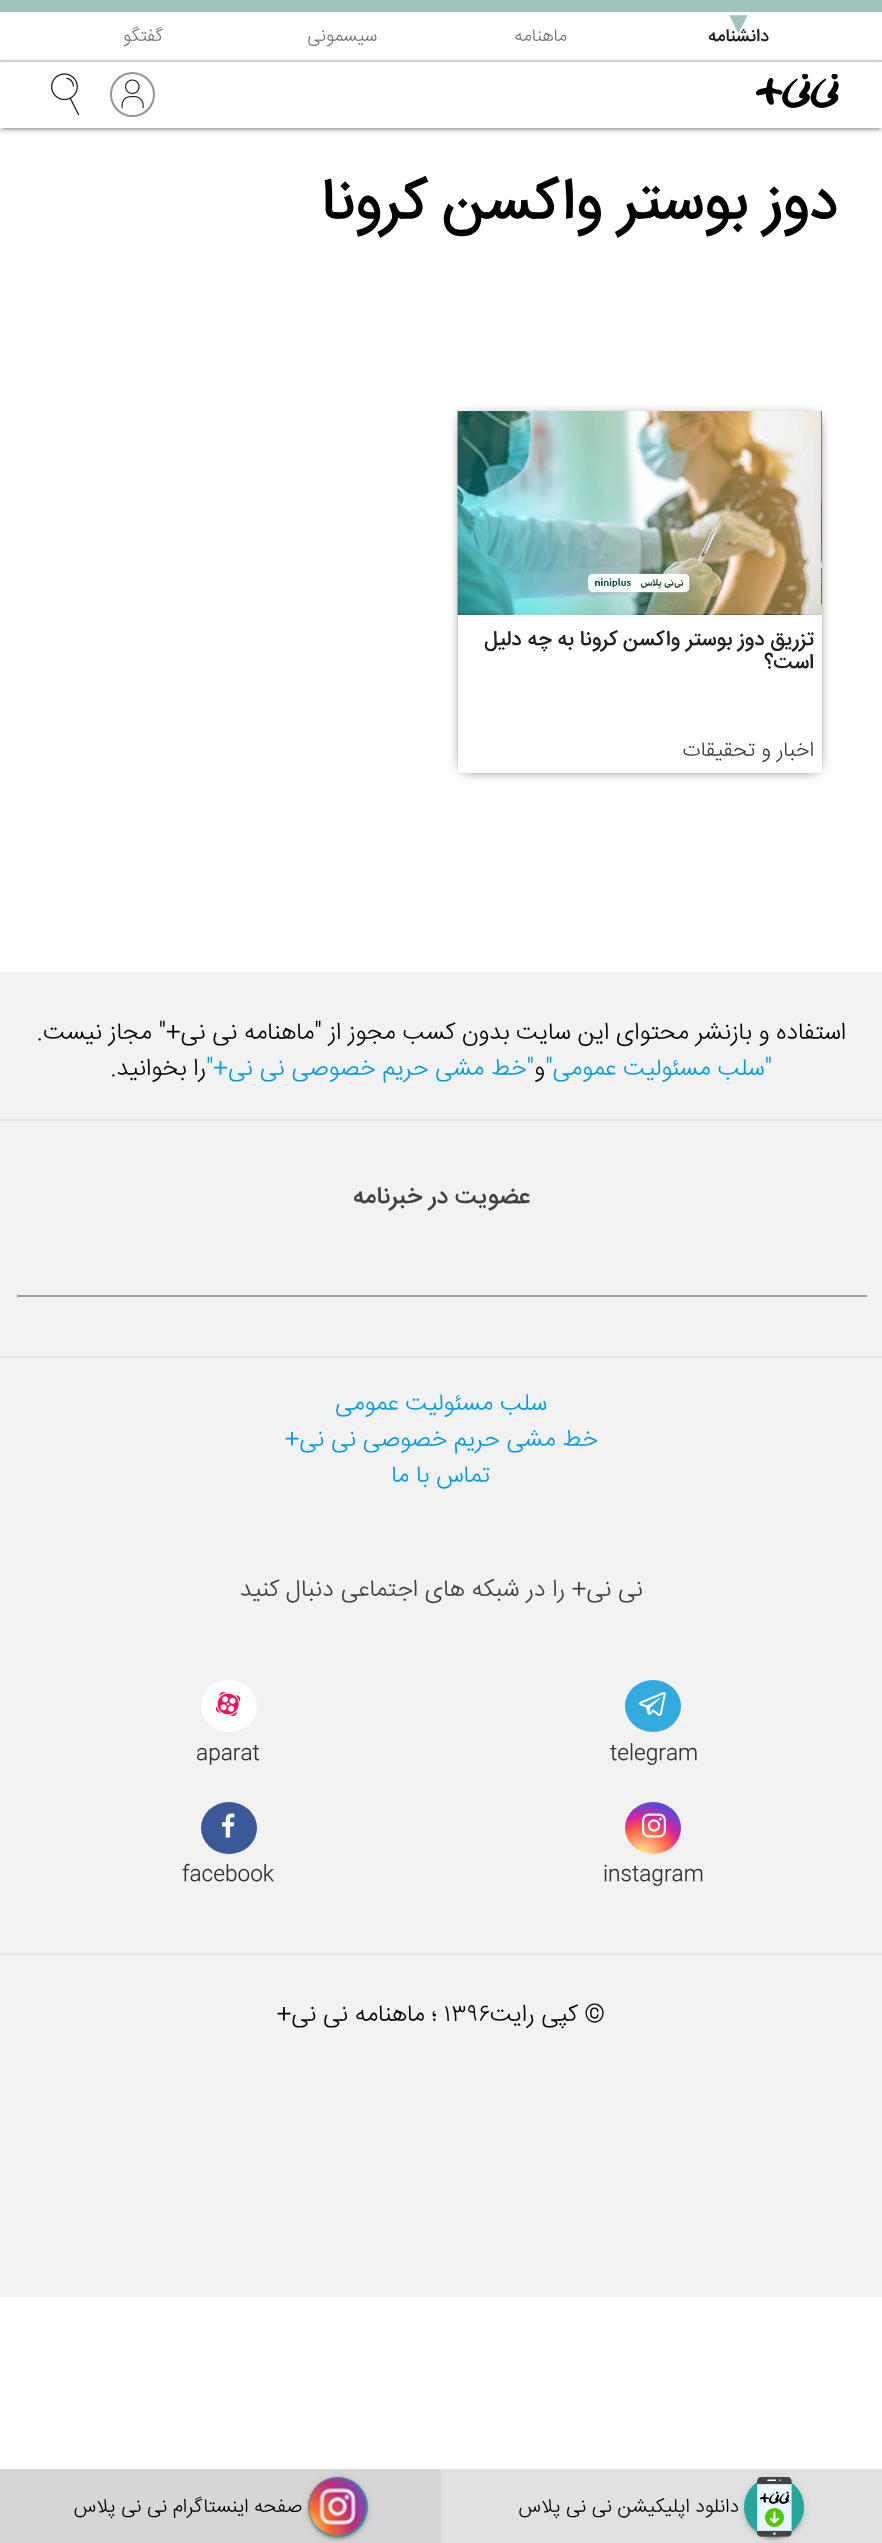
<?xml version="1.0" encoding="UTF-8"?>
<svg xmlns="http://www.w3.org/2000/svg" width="882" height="2543">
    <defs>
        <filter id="blur1" x="-50%" y="-200%" width="200%" height="500%"><feGaussianBlur stdDeviation="1"/></filter>
        <filter id="blur2" x="-50%" y="-200%" width="200%" height="500%"><feGaussianBlur stdDeviation="4"/></filter>
        <filter id="blur3" x="-50%" y="-200%" width="200%" height="500%"><feGaussianBlur stdDeviation="1.5"/></filter>
        <clipPath id="clip1"><path d="M 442 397 H 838 V 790 H 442 Z M 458 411 H 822 V 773 H 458 Z" clip-rule="evenodd"/></clipPath>
        <filter id="blur4" x="-50%" y="-200%" width="200%" height="500%"><feGaussianBlur stdDeviation="7"/></filter>
        <radialGradient id="g1" gradientUnits="userSpaceOnUse" cx="642" cy="1858" r="68"><stop offset="0" stop-color="#FDF497"/><stop offset="0.05" stop-color="#FDF497"/><stop offset="0.45" stop-color="#FD5949"/><stop offset="0.6" stop-color="#D6249F"/><stop offset="0.9" stop-color="#285AEB"/></radialGradient>
    </defs>
    <rect width="100%" height="100%" fill="#FFFFFF"/>
    <rect x="0" y="0" width="882" height="12" fill="#A0C3BE"/>
    <text x="769" y="41" font-family="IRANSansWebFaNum" font-size="18" font-weight="500" direction="rtl" fill="#212121">دانشنامه</text>
    <text x="723" y="33" font-family="Liberation Sans" font-size="31" fill="#A0C3BE">▼</text>
    <text x="567" y="41" font-family="IRANSansWebFaNum" font-size="18" font-weight="300" direction="rtl" fill="#757575">ماهنامه</text>
    <text x="377" y="41" font-family="IRANSansWebFaNum" font-size="18" font-weight="300" direction="rtl" fill="#757575">سیسمونی</text>
    <text x="163" y="41" font-family="IRANSansWebFaNum" font-size="18" font-weight="300" direction="rtl" fill="#757575">گفتگو</text>
    <rect x="3" y="68" width="876" height="61" fill="#000000" fill-opacity="0.2" filter="url(#blur1)"/>
    <rect x="0" y="62" width="882" height="67" fill="#000000" fill-opacity="0.12" filter="url(#blur2)"/>
    <rect x="0" y="63" width="882" height="68" fill="#000000" fill-opacity="0.14" filter="url(#blur3)"/>
    <rect x="0" y="62" width="882" height="66" fill="#FFFFFF"/>
    <rect x="0" y="60" width="882" height="2" fill="#CECECE"/>
    <image x="756" y="74" width="83" height="34" href="img_01.png"/>
    <circle cx="132.5" cy="94.5" r="21.5" fill="none" stroke="#949494" stroke-width="2"/>
    <image x="121" y="79" width="23" height="30" href="img_02.png"/>
    <image x="51" y="73" width="29" height="43" href="img_03.png"/>
    <text x="838" y="218" font-family="IRANSansWebFaNum" font-size="58.75" font-weight="500" direction="rtl" fill="#000000">دوز بوستر واکسن کرونا</text>
    <g clip-path="url(#clip1)">
        <rect x="464" y="419" width="352" height="349" fill="#000000" filter="url(#blur4)"/>
    </g>
    <image x="457" y="411" width="365" height="204" href="img_04.png"/>
    <rect x="458" y="772" width="364" height="1" fill="#FFFFFF"/>
    <text font-family="IRANSansWebFaNum" font-size="21" font-weight="500" direction="rtl" fill="#212121">
        <tspan x="814" y="645">تزریق دوز بوستر واکسن کرونا به چه دلیل</tspan>
        <tspan x="814" y="668">است؟</tspan>
    </text>
    <text x="814" y="756" font-family="IRANSansWebFaNum" font-size="21" font-weight="300" direction="rtl" fill="#404040">اخبار و تحقیقات</text>
    <rect x="0" y="972" width="882" height="1325" fill="#F2F2F2"/>
    <rect x="0" y="1119" width="882" height="2" fill="#E6E6E6"/>
    <text x="846" y="1039" font-family="IRANSansWebFaNum" font-size="24" font-weight="300" direction="rtl" fill="#000000">استفاده و بازنشر محتوای این سایت بدون کسب مجوز از "ماهنامه نی نی+" مجاز نیست.</text>
    <text x="772" y="1075" font-family="IRANSansWebFaNum" font-size="24" font-weight="300" direction="rtl" fill="#039BE5">"سلب مسئولیت عمومی"</text>
    <text x="545" y="1075" font-family="IRANSansWebFaNum" font-size="24" font-weight="300" direction="rtl" fill="#000000">و</text>
    <text x="534" y="1075" font-family="IRANSansWebFaNum" font-size="24" font-weight="300" direction="rtl" fill="#039BE5">"خط مشی حریم خصوصی نی نی+"</text>
    <text x="206" y="1075" font-family="IRANSansWebFaNum" font-size="24" font-weight="300" direction="rtl" fill="#000000">را بخوانید.</text>
    <rect x="0" y="1356" width="882" height="2" fill="#E6E6E6"/>
    <text x="530" y="1203" font-family="IRANSansWebFaNum" font-size="24" font-weight="500" direction="rtl" fill="#404040">عضویت در خبرنامه</text>
    <rect x="17" y="1295" width="850" height="2" fill="#9E9E9E"/>
    <text x="547" y="1410" font-family="IRANSansWebFaNum" font-size="24" font-weight="300" direction="rtl" fill="#039BE5">سلب مسئولیت عمومی</text>
    <text x="598" y="1446" font-family="IRANSansWebFaNum" font-size="24" font-weight="300" direction="rtl" fill="#039BE5">خط مشی حریم خصوصی نی نی+</text>
    <text x="490" y="1482" font-family="IRANSansWebFaNum" font-size="24" font-weight="300" direction="rtl" fill="#039BE5">تماس با ما</text>
    <rect x="0" y="1953" width="882" height="2" fill="#E6E6E6"/>
    <text x="643" y="1596" font-family="IRANSansWebFaNum" font-size="24" font-weight="300" direction="rtl" fill="#404040">نی نی+ را در شبکه های اجتماعی دنبال کنید</text>
    <ellipse cx="653" cy="1706" rx="28" ry="26" fill="#32AADE"/>
    <image x="639" y="1692" width="27" height="24" href="img_05.png"/>
    <text x="610" y="1759" font-family="IRANSansWebFaNum" font-size="21" font-weight="300" fill="#333333">telegram</text>
    <ellipse cx="229" cy="1706" rx="28" ry="26" fill="#FFFFFF"/>
    <image x="216" y="1692" width="25" height="24" href="img_06.png"/>
    <text x="196" y="1759" font-family="IRANSansWebFaNum" font-size="21" font-weight="300" fill="#333333">aparat</text>
    <ellipse cx="653" cy="1828" rx="28" ry="26" fill="url(#g1)"/>
    <image x="642" y="1813" width="24" height="25" href="img_07.png"/>
    <text x="603" y="1880" font-family="IRANSansWebFaNum" font-size="21" font-weight="300" fill="#333333">instagram</text>
    <ellipse cx="229" cy="1828" rx="28" ry="26" fill="#3B5998"/>
    <image x="222" y="1813" width="13" height="25" href="img_08.png"/>
    <text x="182" y="1880" font-family="IRANSansWebFaNum" font-size="21" font-weight="300" fill="#333333">facebook</text>
    <text x="605" y="2021" font-family="IRANSansWebFaNum" font-size="24" font-weight="300" direction="rtl" fill="#000000">© کپی رایت</text>
    <text x="444" y="2021" font-family="IRANSansWebFaNum" font-size="24" font-weight="300" fill="#000000">۱۳۹۶</text>
    <text x="437" y="2021" font-family="IRANSansWebFaNum" font-size="24" font-weight="300" direction="rtl" fill="#000000">؛</text>
    <text x="425" y="2021" font-family="IRANSansWebFaNum" font-size="24" font-weight="300" direction="rtl" fill="#000000">ماهنامه نی نی+</text>
    <rect x="441" y="2469" width="441" height="74" fill="#E1E1E1"/>
    <rect x="747" y="2484" width="54" height="54" rx="27" fill="#000000" fill-opacity="0.2" filter="url(#blur1)"/>
    <rect x="744" y="2478" width="60" height="60" rx="30" fill="#000000" fill-opacity="0.12" filter="url(#blur2)"/>
    <rect x="744" y="2480" width="60" height="60" rx="30" fill="#000000" fill-opacity="0.14" filter="url(#blur3)"/>
    <circle cx="774" cy="2507" r="30" fill="#26A69A"/>
    <image x="757" y="2477" width="35" height="60" href="img_09.png"/>
    <text x="739" y="2512" font-family="IRANSansWebFaNum" font-size="19.5" font-weight="300" direction="rtl" fill="#000000">دانلود اپلیکیشن نی نی پلاس</text>
    <rect x="0" y="2469" width="441" height="74" fill="#D7D6D6"/>
    <rect x="311" y="2484" width="54" height="54" rx="27" fill="#000000" fill-opacity="0.2" filter="url(#blur1)"/>
    <rect x="308" y="2478" width="60" height="60" rx="30" fill="#000000" fill-opacity="0.12" filter="url(#blur2)"/>
    <rect x="308" y="2480" width="60" height="60" rx="30" fill="#000000" fill-opacity="0.14" filter="url(#blur3)"/>
    <circle cx="338" cy="2507" r="30" fill="#26A69A"/>
    <image x="307" y="2476" width="61" height="61" href="img_10.png"/>
    <text x="302" y="2512" font-family="IRANSansWebFaNum" font-size="19.5" font-weight="300" direction="rtl" fill="#000000">صفحه اینستاگرام نی نی پلاس</text>
</svg>
